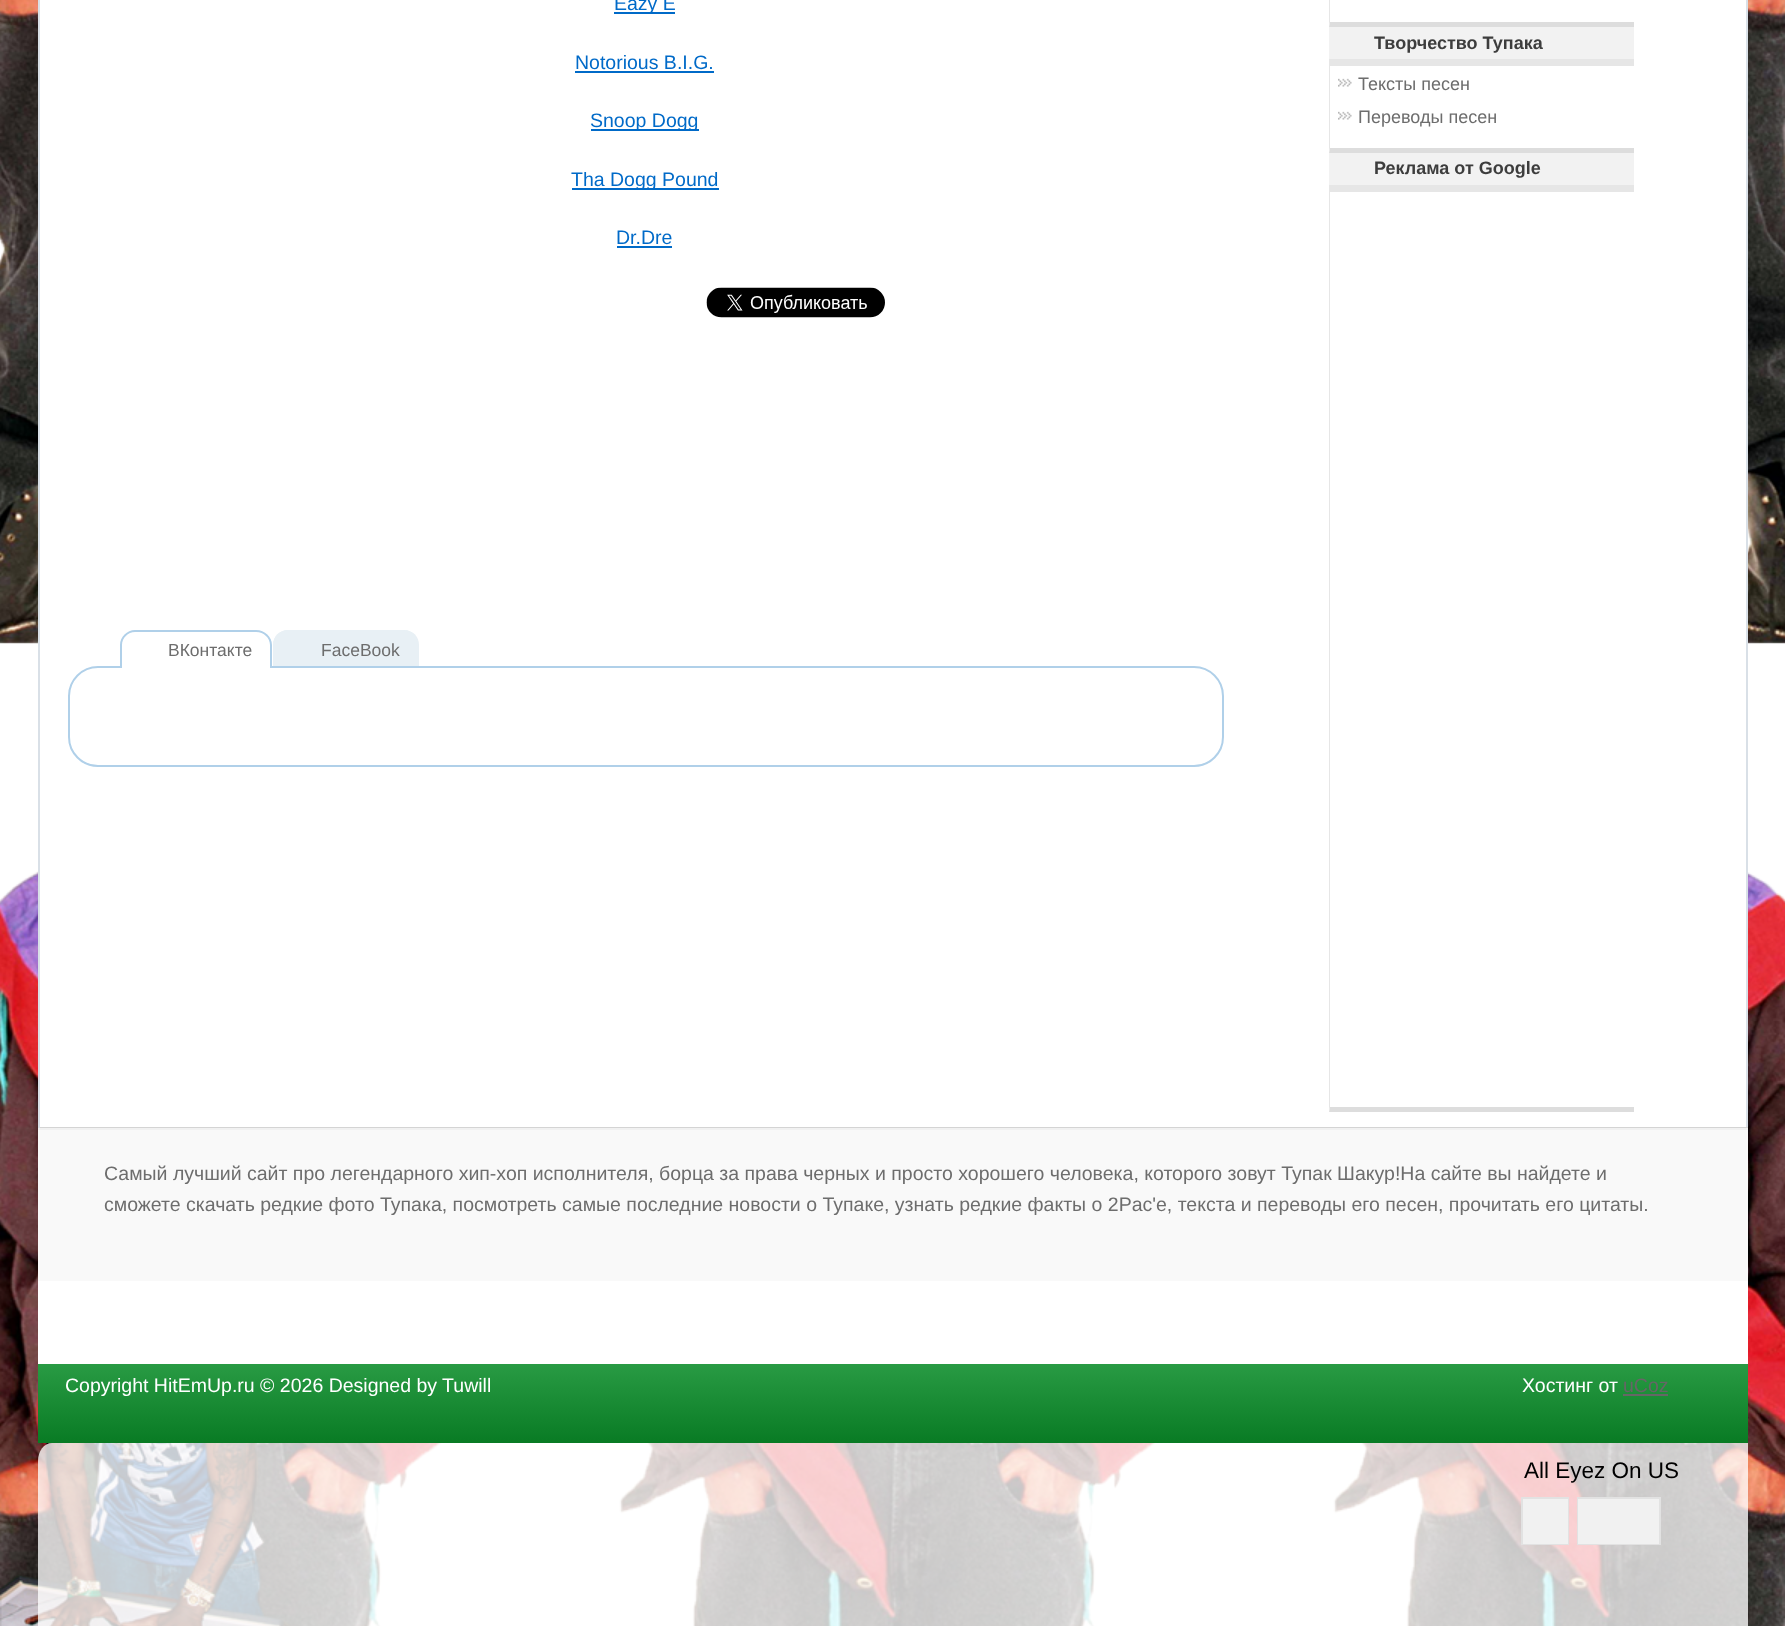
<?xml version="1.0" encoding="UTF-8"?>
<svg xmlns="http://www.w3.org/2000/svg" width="1785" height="1626">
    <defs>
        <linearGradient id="g1" gradientUnits="userSpaceOnUse" x1="893" y1="1363" x2="893" y2="1443"><stop offset="0" stop-color="#299B44"/><stop offset="1" stop-color="#097B24"/></linearGradient>
    </defs>
    <rect width="100%" height="100%" fill="#FFFFFF"/>
    <image x="0" y="0" width="1785" height="1626" href="img_01.png"/>
    <image x="0" y="1443" width="291" height="183" href="img_02.png"/>
    <rect x="40" y="0" width="1706" height="1127" fill="#FFFFFF"/>
    <rect x="1746" y="0" width="2" height="1128" fill="#D9E0E7"/>
    <rect x="38" y="1127" width="1710" height="1" fill="#D4D4D4"/>
    <rect x="38" y="0" width="2" height="1128" fill="#D9E0E7"/>
    <rect x="614" y="12" width="61" height="2" fill="#006AC8"/>
    <text x="614" y="10" font-family="Liberation Sans" font-size="19.5" fill="#006AC8">Eazy E</text>
    <text x="575" y="69" font-family="Liberation Sans" font-size="19.5" fill="#006AC8">Notorious B.I.G.</text>
    <rect x="575" y="71" width="139" height="2" fill="#006AC8"/>
    <rect x="591" y="129" width="108" height="2" fill="#006AC8"/>
    <text x="590" y="127" font-family="Liberation Sans" font-size="19.5" fill="#006AC8">Snoop Dogg</text>
    <rect x="572" y="188" width="147" height="2" fill="#006AC8"/>
    <text x="571" y="186" font-family="Liberation Sans" font-size="19.5" fill="#006AC8">Tha Dogg Pound</text>
    <text x="616" y="244" font-family="Liberation Sans" font-size="19.5" fill="#006AC8">Dr.Dre</text>
    <rect x="617" y="246" width="55" height="2" fill="#006AC8"/>
    <image x="706" y="287" width="179" height="31" href="img_03.png"/>
    <path d="M 288 630 H 404 C 412.5 630 419 636.5 419 645 V 668 H 273 V 645 C 273 636.5 279.5 630 288 630 Z" fill="#E8F0F5"/>
    <path d="M 288 630 H 404 C 412 630 418 637 418 645 V 668 H 273 V 645 C 273 637 280 630 288 630 Z M 288 632 H 404 C 411 632 417 638 417 645 V 668 H 274 V 645 C 274 638 281 632 288 632 Z" fill="#E8F0F5" fill-rule="evenodd"/>
    <rect x="273" y="666" width="146" height="2" fill="#FFFFFF"/>
    <rect x="69" y="667" width="1154" height="99" rx="29" fill="none" stroke="#B0D0E9" stroke-width="2"/>
    <path d="M 135 630 H 257 C 265.5 630 272 636.5 272 645 V 668 H 120 V 645 C 120 636.5 126.5 630 135 630 Z" fill="#FFFFFF"/>
    <path d="M 135 630 H 256 C 265 630 272 637 272 645 V 668 H 120 V 645 C 120 637 127 630 135 630 Z M 135 632 H 256 C 264 632 270 638 270 645 V 668 H 122 V 645 C 122 638 128 632 135 632 Z" fill="#B0D0E9" fill-rule="evenodd"/>
    <text x="168" y="656" font-family="Liberation Sans" font-size="17.5" fill="#6D6D6D">ВКонтакте</text>
    <text x="321" y="656" font-family="Liberation Sans" font-size="17.5" fill="#6D6D6D">FaceBook</text>
    <path d="M 1634 27 H 1329 L 1330 22 H 1634 Z" fill="#DDDDDD"/>
    <path d="M 1329 27 V -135 L 1330 -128 V 22 Z" fill="#E6E6E6"/>
    <rect x="1329" y="27" width="305" height="32" fill="#F2F2F2"/>
    <text x="1374" y="49" font-family="Liberation Sans" font-size="18" font-weight="700" fill="#3D3D3D">Творчество Тупака</text>
    <rect x="1329" y="59" width="305" height="7" fill="#E6E6E6"/>
    <path d="M 1634 153 H 1329 L 1330 148 H 1634 Z" fill="#DDDDDD"/>
    <path d="M 1329 153 V 58 L 1330 66 V 148 Z" fill="#E6E6E6"/>
    <image x="1338" y="78" width="14" height="9" href="img_04.png"/>
    <text x="1358" y="90" font-family="Liberation Sans" font-size="18" fill="#6D6D6D">Тексты песен</text>
    <image x="1338" y="111" width="14" height="9" href="img_04.png"/>
    <text x="1358" y="123" font-family="Liberation Sans" font-size="18" fill="#6D6D6D">Переводы песен</text>
    <rect x="1329" y="153" width="305" height="32" fill="#F2F2F2"/>
    <text x="1374" y="174" font-family="Liberation Sans" font-size="18" font-weight="700" fill="#3D3D3D">Реклама от Google</text>
    <rect x="1329" y="185" width="305" height="7" fill="#E6E6E6"/>
    <path d="M 1634 1112 H 1329 L 1330 1107 H 1634 Z" fill="#DDDDDD"/>
    <path d="M 1329 1112 V 184 L 1330 192 V 1107 Z" fill="#E6E6E6"/>
    <rect x="38" y="1130" width="1710" height="151" fill="#F9F9F9"/>
    <rect x="38" y="1128" width="1710" height="2" fill="#F1F1F1"/>
    <text font-family="Liberation Sans" font-size="19.5" fill="#6D6D6D">
        <tspan x="104" y="1180">Самый лучший сайт про легендарного хип-хоп исполнителя, борца за права черных и просто хорошего человека, которого зовут Тупак Шакур!На сайте вы найдете и</tspan>
        <tspan x="104" y="1211">сможете скачать редкие фото Тупака, посмотреть самые последние новости о Тупаке, узнать редкие факты о 2Pac'e, текста и переводы его песен, прочитать его цитаты.</tspan>
    </text>
    <rect x="38" y="1281" width="1710" height="83" fill="#FFFFFF"/>
    <rect x="38" y="1364" width="1710" height="79" fill="url(#g1)"/>
    <text x="65" y="1392" font-family="Liberation Sans" font-size="19.5" fill="#FFFFFF">Copyright HitEmUp.ru © 2026 Designed by Tuwill</text>
    <text x="1522" y="1392" font-family="Liberation Sans" font-size="19.5" fill="#FFFFFF">Хостинг от</text>
    <text x="1623" y="1392" font-family="Liberation Sans" font-size="19.5" fill="#666666">uCoz</text>
    <rect x="1623" y="1394" width="45" height="2" fill="#666666"/>
    <path d="M 52 1443 H 1748 V 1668 H 38 V 1461 C 38 1451 44 1443 52 1443 Z" fill="#FFFFFF" fill-opacity="0.78"/>
    <text x="1524" y="1478" font-family="Liberation Sans" font-size="22.5" fill="#000000">All Eyez On US</text>
    <rect x="1522" y="1498" width="46" height="46" fill="none" stroke="#E2E2E2" stroke-width="2"/>
    <rect x="1523" y="1499" width="45" height="45" fill="#F1F1F1"/>
    <rect x="1578" y="1498" width="82" height="46" fill="none" stroke="#E2E2E2" stroke-width="2"/>
    <rect x="1578" y="1499" width="81" height="45" fill="#F1F1F1"/>
</svg>
